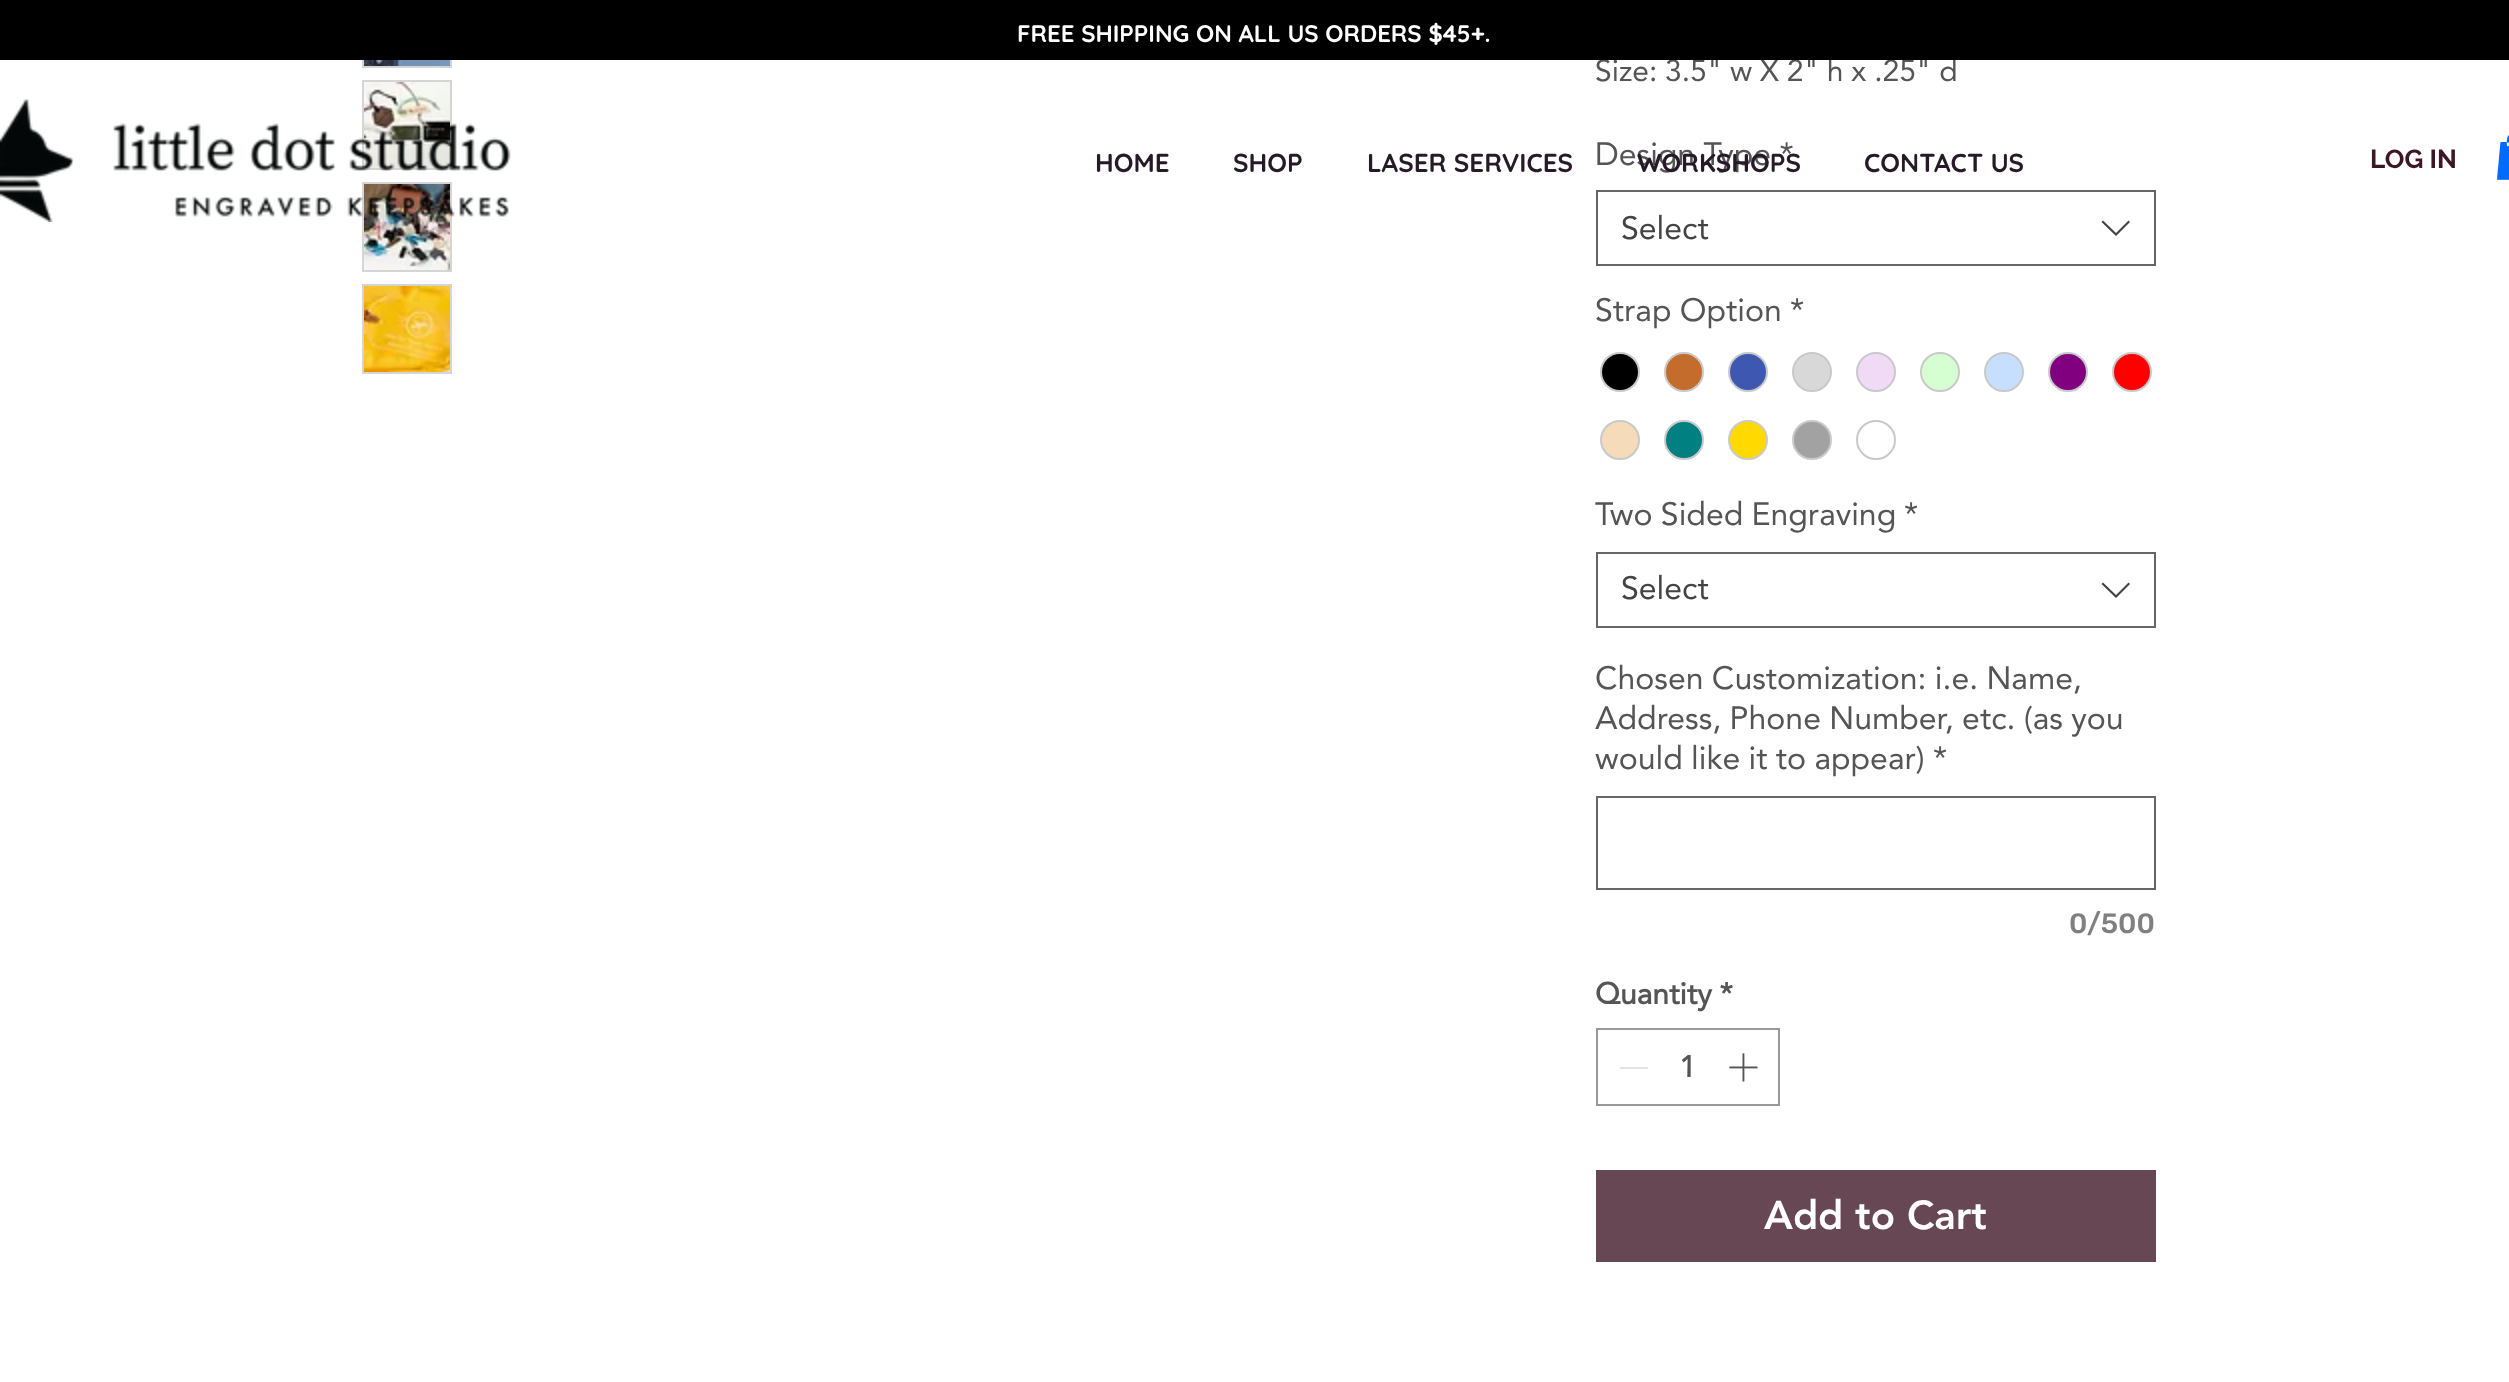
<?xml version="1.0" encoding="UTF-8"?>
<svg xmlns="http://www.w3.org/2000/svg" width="2509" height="1382">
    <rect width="100%" height="100%" fill="#FFFFFF"/>
    <text x="1595" y="81" font-family="'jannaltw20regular'" font-size="30" fill="#555555">Size: 3.5" w X 2" h x .25" d</text>
    <rect x="0" y="0" width="2509" height="60" fill="#000000"/>
    <text x="1017" y="42" font-family="Quicksand" font-size="24" font-weight="700" fill="#FFFFFF">FREE SHIPPING ON ALL US ORDERS $45+.</text>
    <rect x="362" y="80" width="90" height="90" fill="#D5D5D5"/>
    <image x="364" y="82" width="86" height="86" href="img_04.png"/>
    <rect x="362" y="182" width="90" height="90" fill="#D5D5D5"/>
    <image x="364" y="184" width="86" height="86" href="img_05.png"/>
    <image x="0" y="98" width="511" height="124" href="img_01.png"/>
    <text x="1095" y="172" font-family="Quicksand" font-size="26" font-weight="700" fill="#271A28">HOME</text>
    <text x="1233" y="172" font-family="Quicksand" font-size="26" font-weight="700" fill="#271A28">SHOP</text>
    <text x="1367" y="172" font-family="Quicksand" font-size="26" font-weight="700" fill="#271A28">LASER SERVICES</text>
    <text x="1595" y="165" font-family="'jannaltw20regular'" font-size="32" fill="#555555">Design Type *</text>
    <text x="1637" y="172" font-family="Quicksand" font-size="26" font-weight="700" fill="#271A28">WORKSHOPS</text>
    <text x="1864" y="172" font-family="Quicksand" font-size="26" font-weight="700" fill="#271A28">CONTACT US</text>
    <text x="2370" y="168" font-family="Raleway" font-size="26" font-weight="700" fill="#3D1726">LOG IN</text>
    <image x="2497" y="135" width="12" height="45" href="img_02.png"/>
    <rect x="362" y="60" width="90" height="8" fill="#D5D5D5"/>
    <image x="364" y="60" width="86" height="6" href="img_03.png"/>
    <rect x="362" y="284" width="90" height="90" fill="#D5D5D5"/>
    <image x="364" y="286" width="86" height="86" href="img_06.png"/>
    <rect x="1597" y="191" width="558" height="74" fill="none" stroke="#666666" stroke-width="2"/>
    <text x="1621" y="239" font-family="'jannaltw20regular'" font-size="32" fill="#444444">Select</text>
    <path d="M 2128.5 220.5 L 2130 222 L 2116 236 L 2101.5 222 L 2103 220.5 L 2116 233 Z" fill="#444444" fill-rule="evenodd"/>
    <text x="1595" y="321" font-family="'jannaltw20regular'" font-size="32" fill="#555555">Strap Option *</text>
    <circle cx="1620" cy="372" r="19" fill="#000000" stroke="#C9C9C9" stroke-width="2"/>
    <circle cx="1684" cy="372" r="19" fill="#C46C2B" stroke="#C9C9C9" stroke-width="2"/>
    <circle cx="1748" cy="372" r="19" fill="#3E58B2" stroke="#C9C9C9" stroke-width="2"/>
    <circle cx="1812" cy="372" r="19" fill="#D9D8D8" stroke="#C9C9C9" stroke-width="2"/>
    <circle cx="1876" cy="372" r="19" fill="#F1DAF5" stroke="#C9C9C9" stroke-width="2"/>
    <circle cx="1940" cy="372" r="19" fill="#D6FFD1" stroke="#C9C9C9" stroke-width="2"/>
    <circle cx="2004" cy="372" r="19" fill="#C7DFFF" stroke="#C9C9C9" stroke-width="2"/>
    <circle cx="2068" cy="372" r="19" fill="#800080" stroke="#C9C9C9" stroke-width="2"/>
    <circle cx="2132" cy="372" r="19" fill="#FF0000" stroke="#C9C9C9" stroke-width="2"/>
    <circle cx="1620" cy="440" r="19" fill="#F5DBB9" stroke="#C9C9C9" stroke-width="2"/>
    <circle cx="1684" cy="440" r="19" fill="#008080" stroke="#C9C9C9" stroke-width="2"/>
    <circle cx="1748" cy="440" r="19" fill="#FFD900" stroke="#C9C9C9" stroke-width="2"/>
    <circle cx="1812" cy="440" r="19" fill="#A2A2A2" stroke="#C9C9C9" stroke-width="2"/>
    <circle cx="1876" cy="440" r="19" fill="none" stroke="#C9C9C9" stroke-width="2"/>
    <text x="1595" y="525" font-family="'jannaltw20regular'" font-size="32" fill="#555555">Two Sided Engraving</text>
    <text x="1904" y="525" font-family="'jannaltw20regular'" font-size="32" fill="#555555">*</text>
    <rect x="1597" y="553" width="558" height="74" fill="none" stroke="#666666" stroke-width="2"/>
    <text x="1621" y="599" font-family="'jannaltw20regular'" font-size="32" fill="#444444">Select</text>
    <path d="M 2128.5 582.5 L 2130 584 L 2116 598 L 2101.5 584 L 2103 582.5 L 2116 595 Z" fill="#444444" fill-rule="evenodd"/>
    <text font-family="'jannaltw20regular'" font-size="32" fill="#555555">
        <tspan x="1595" y="689">Chosen Customization: i.e. Name,</tspan>
        <tspan x="1595" y="729">Address, Phone Number, etc. (as you</tspan>
        <tspan x="1595" y="769">would like it to appear) *</tspan>
    </text>
    <rect x="1597" y="797" width="558" height="92" fill="none" stroke="#666666" stroke-width="2"/>
    <text x="2069" y="933" font-family="Rubik" font-size="28" font-weight="500" fill="#808080">0/500</text>
    <text x="1595" y="1004" font-family="'jannaltw20regular'" font-size="30" font-weight="700" fill="#555555">Quantity *</text>
    <rect x="1597" y="1029" width="182" height="76" fill="none" stroke="#999999" stroke-width="2"/>
    <rect x="1620" y="1067" width="28" height="2" fill="#E3E3E3"/>
    <text x="1679" y="1077" font-family="'jannaltw20regular'" font-size="30" font-weight="700" fill="#555555">1</text>
    <image x="1729" y="1053" width="29" height="29" href="img_07.png"/>
    <rect x="1596" y="1170" width="560" height="92" fill="#674753"/>
    <text x="1764" y="1229" font-family="'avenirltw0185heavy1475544'" font-size="40" font-weight="900" fill="#FFFFFF">Add to Cart</text>
</svg>
